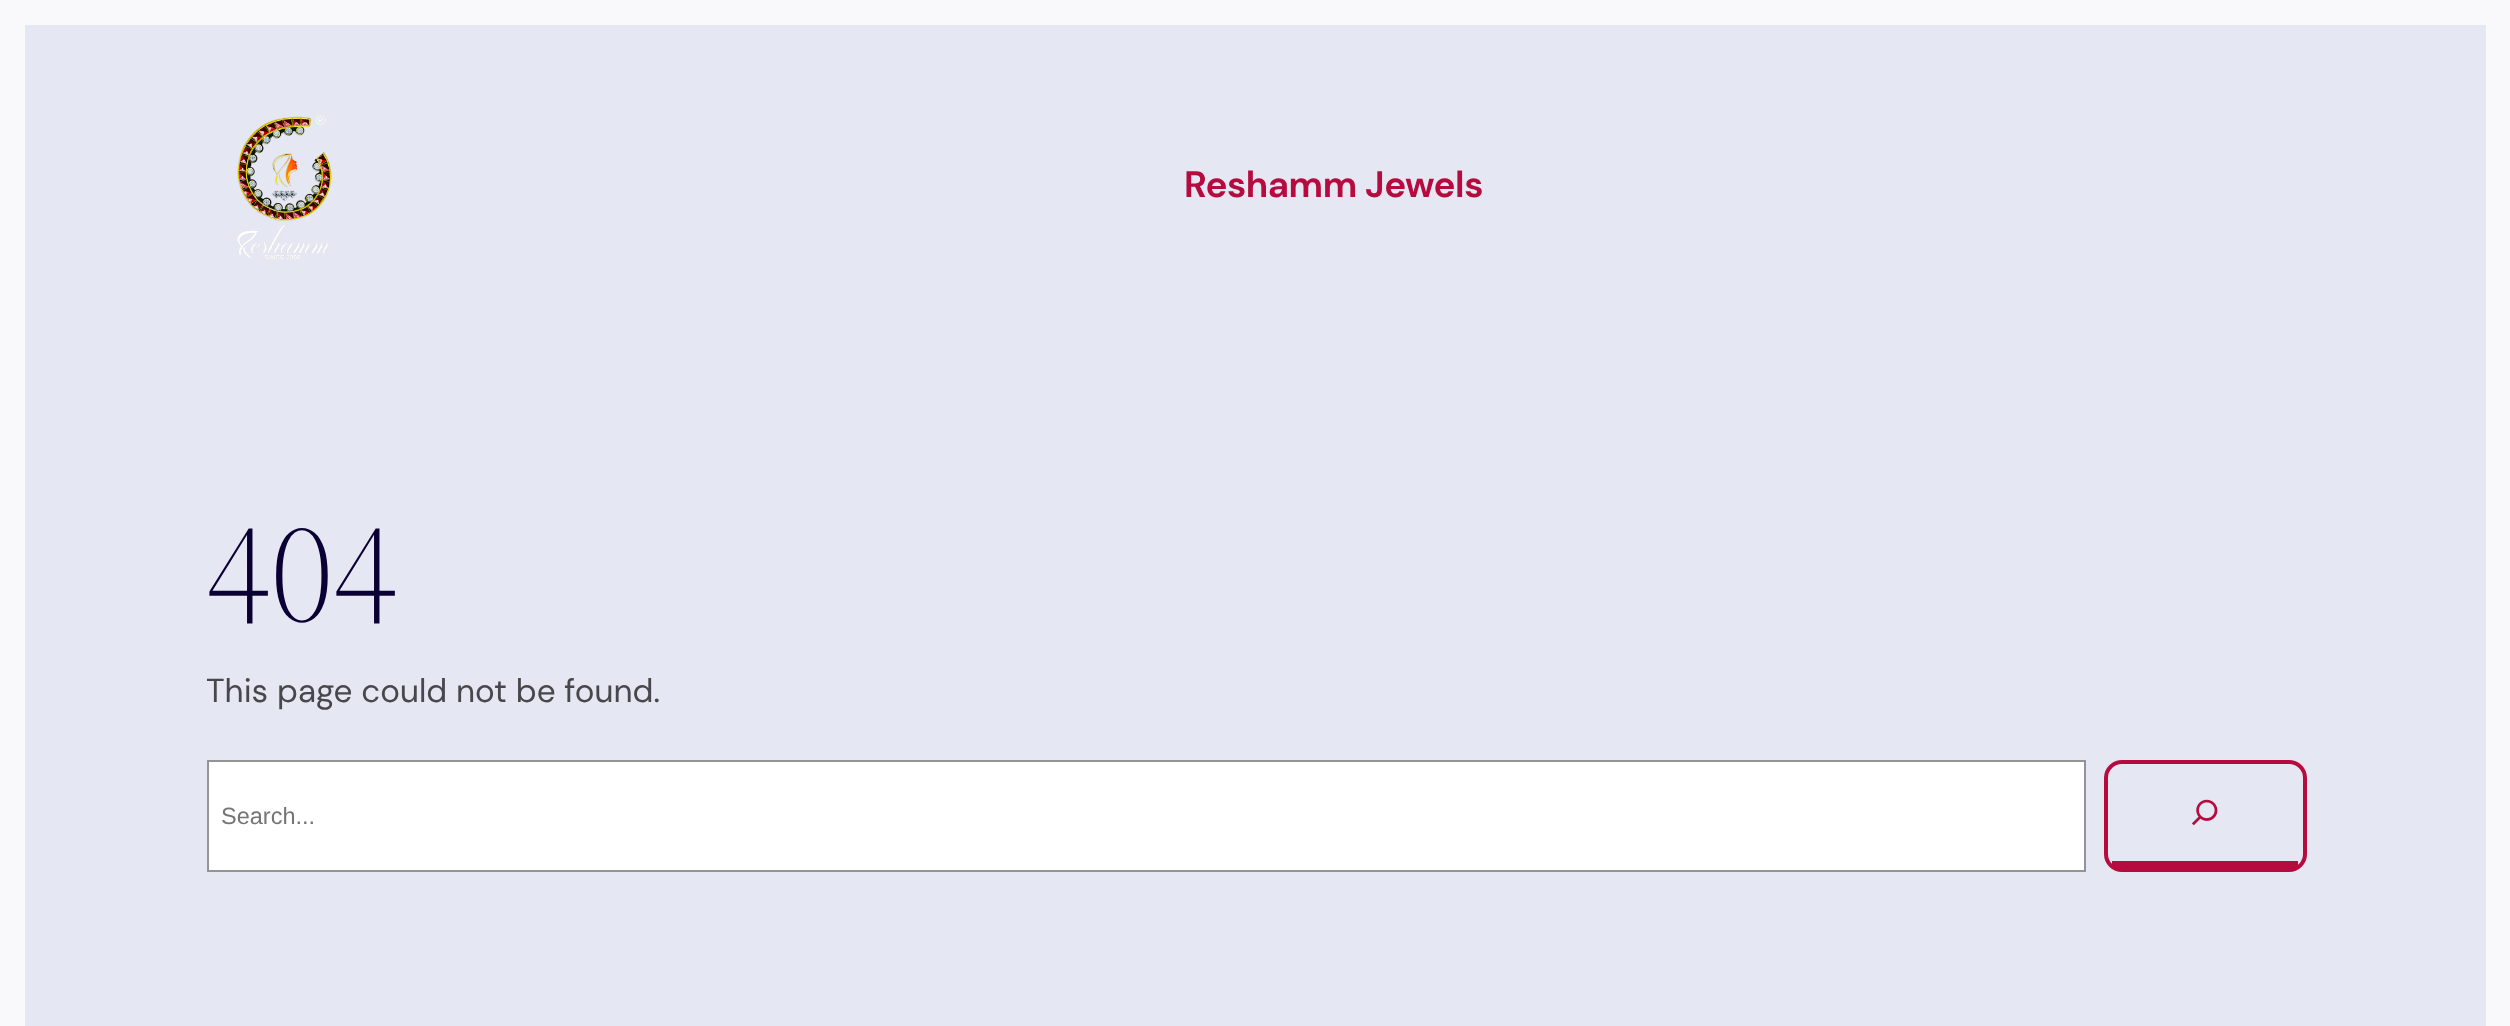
<?xml version="1.0" encoding="UTF-8"?>
<svg xmlns="http://www.w3.org/2000/svg" width="2510" height="1026">
    <rect width="100%" height="100%" fill="#E5E7F2"/>
    <rect x="12.5" y="12.5" width="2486" height="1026" fill="none" stroke="#F9F9FB" stroke-width="25"/>
    <image x="237" y="115" width="95" height="145" href="img_01.png"/>
    <text x="1184" y="197" font-family="DM Sans" font-size="36.75" font-weight="700" letter-spacing="-0.4" fill="#B50B3E">Reshamm Jewels</text>
    <text x="206" y="621" font-family="'Source Serif 4'" font-size="140" font-weight="300" letter-spacing="-1.5" fill="#0B0033">404</text>
    <text x="206" y="702" font-family="DM Sans" font-size="33.25" fill="#47484B">This page could not be found.</text>
    <rect x="208" y="761" width="1877" height="110" fill="#FFFFFF" stroke="#949494" stroke-width="2"/>
    <text x="221" y="824" font-family="Liberation Sans" font-size="23.5" fill="#757575">Search...</text>
    <rect x="2106" y="762" width="199" height="108" rx="16" fill="none" stroke="#B50B3E" stroke-width="4"/>
    <rect x="2112" y="861" width="186" height="7" fill="#B50B3E"/>
    <image x="2192" y="799" width="26" height="27" href="img_02.png"/>
</svg>
